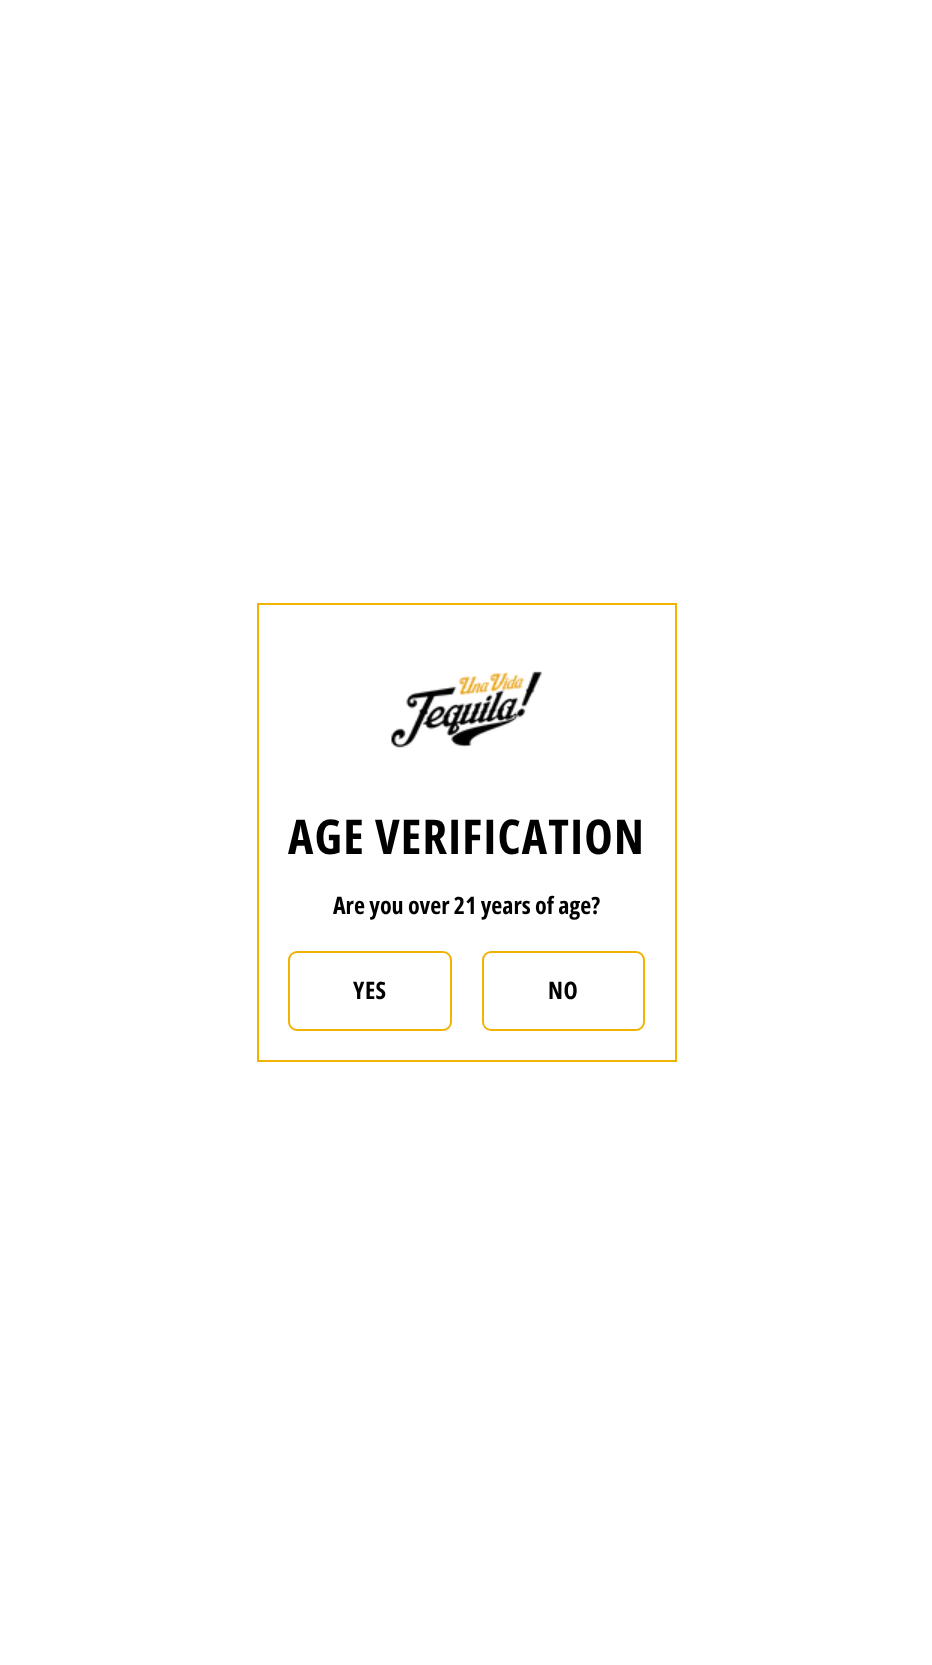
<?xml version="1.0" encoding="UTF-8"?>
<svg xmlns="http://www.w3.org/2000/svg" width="932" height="1665">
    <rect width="100%" height="100%" fill="#FFFFFF"/>
    <rect x="258" y="604" width="418" height="457" fill="none" stroke="#F2B202" stroke-width="2"/>
    <image x="391" y="671" width="151" height="77" href="img_01.png"/>
    <text x="288" y="854" font-family="Open Sans Condensed" font-size="48" font-weight="700" letter-spacing="1.25" fill="#000000">AGE VERIFICATION</text>
    <text x="333" y="914" font-family="Open Sans Condensed" font-size="24" font-weight="700" fill="#000000">Are you over 21 years of age?</text>
    <rect x="289" y="952" width="162" height="78" rx="8" fill="none" stroke="#F2B202" stroke-width="2"/>
    <text x="353" y="999" font-family="Open Sans Condensed" font-size="24" font-weight="700" letter-spacing="0.5" fill="#000000">YES</text>
    <rect x="483" y="952" width="161" height="78" rx="8" fill="none" stroke="#F2B202" stroke-width="2"/>
    <text x="548" y="999" font-family="Open Sans Condensed" font-size="24" font-weight="700" letter-spacing="0.5" fill="#000000">NO</text>
</svg>
